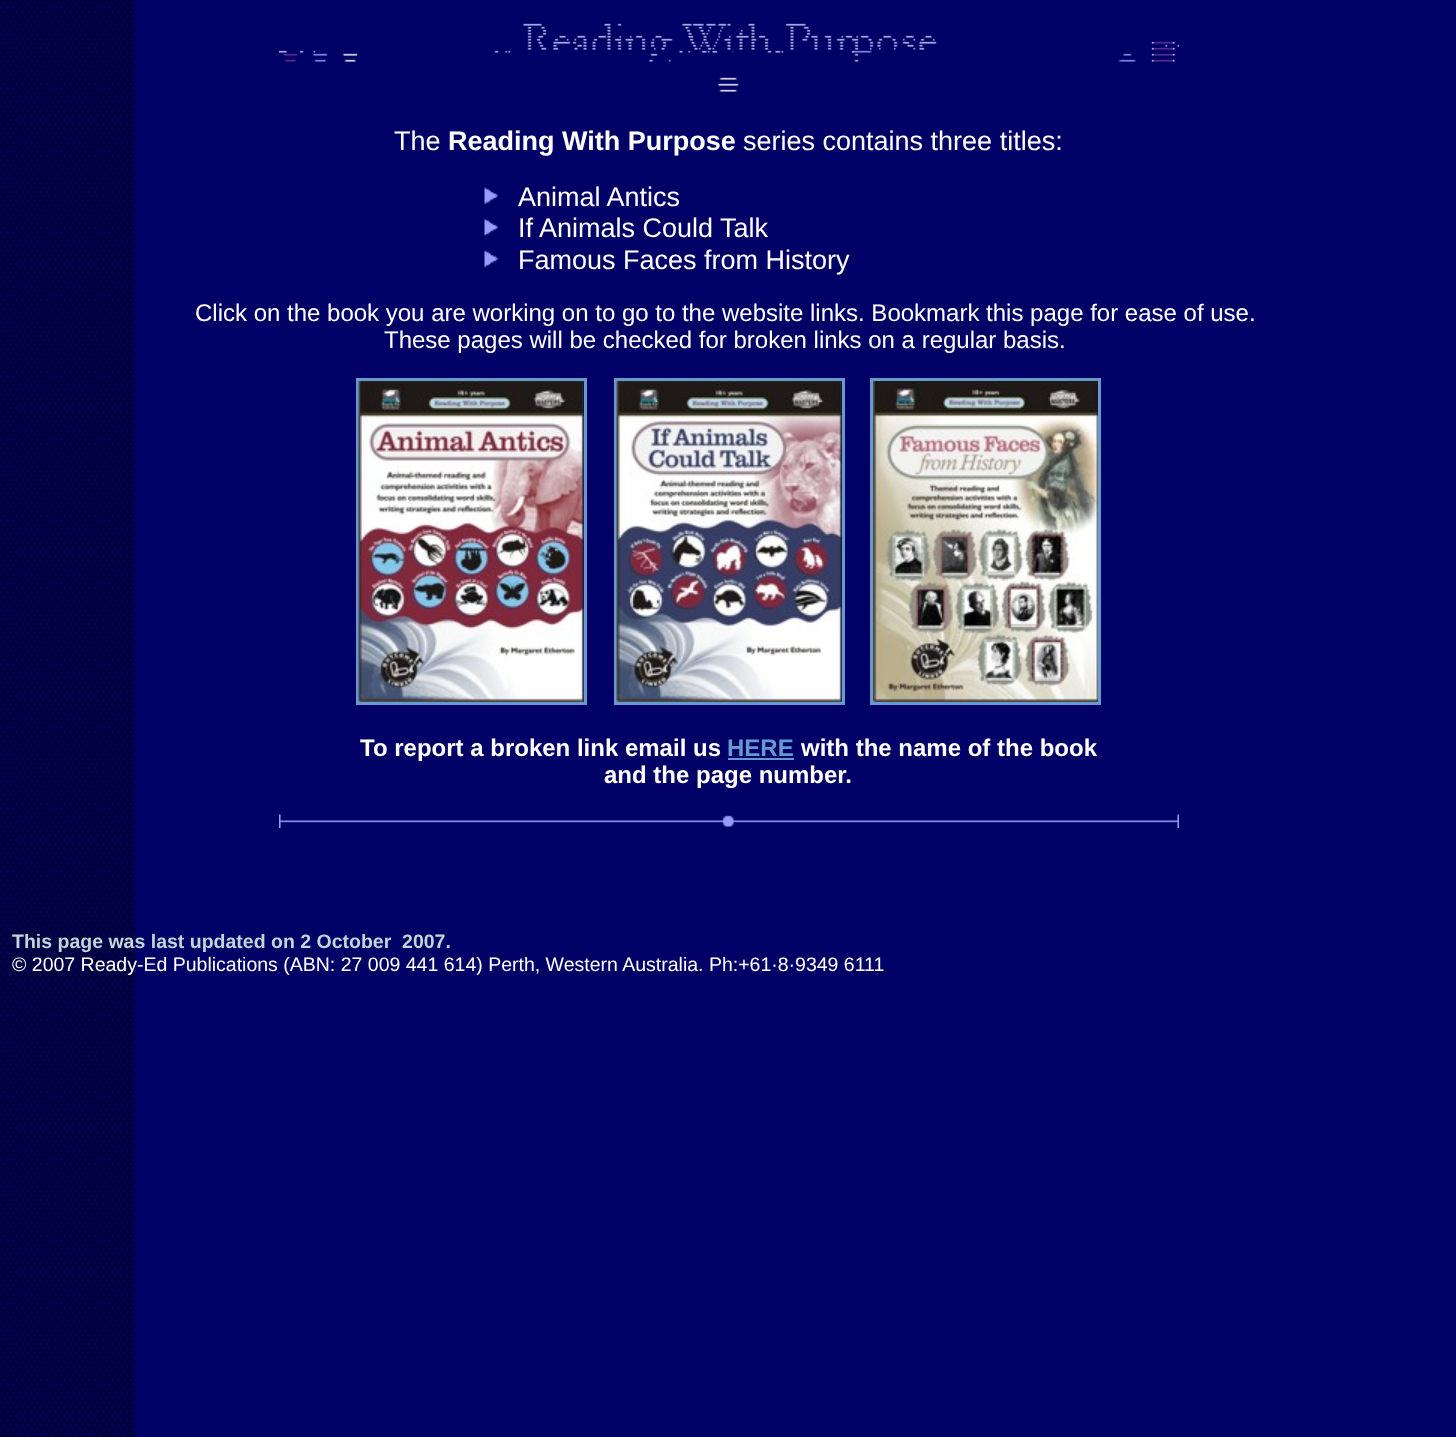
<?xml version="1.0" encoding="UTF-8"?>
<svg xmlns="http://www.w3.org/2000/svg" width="1456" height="1437">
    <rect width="100%" height="100%" fill="#FFFFFF"/>
    <image x="0" y="0" width="1456" height="1437" href="img_01.png"/>
    <image x="279" y="23" width="900" height="69" href="img_02.png"/>
    <text x="394" y="150" font-family="Liberation Sans" font-size="27" fill="#FFFFFF">The</text>
    <text x="448" y="150" font-family="Liberation Sans" font-size="27" font-weight="700" fill="#FFFFFF">Reading With Purpose</text>
    <text x="743" y="150" font-family="Liberation Sans" font-size="27" fill="#FFFFFF">series contains three titles:</text>
    <image x="484" y="187" width="14" height="17" href="img_03.png"/>
    <text x="518" y="206" font-family="Liberation Sans" font-size="27" fill="#FFFFFF">Animal Antics</text>
    <image x="484" y="218" width="14" height="18" href="img_04.png"/>
    <text x="518" y="237" font-family="Liberation Sans" font-size="27" fill="#FFFFFF">If Animals Could Talk</text>
    <image x="484" y="250" width="14" height="17" href="img_03.png"/>
    <text x="518" y="269" font-family="Liberation Sans" font-size="27" fill="#FFFFFF">Famous Faces from History</text>
    <text x="195" y="321" font-family="Liberation Sans" font-size="24" fill="#FFFFFF">Click on the book you are working on to go to the website links. Bookmark this page for ease of use.</text>
    <text x="384" y="348" font-family="Liberation Sans" font-size="24" fill="#FFFFFF">These pages will be checked for broken links on a regular basis.</text>
    <rect x="357.5" y="379.5" width="228" height="324" fill="none" stroke="#6699CC" stroke-width="3"/>
    <rect x="615.5" y="379.5" width="228" height="324" fill="none" stroke="#6699CC" stroke-width="3"/>
    <rect x="871.5" y="379.5" width="228" height="324" fill="none" stroke="#6699CC" stroke-width="3"/>
    <image x="358" y="381" width="226" height="321" href="img_05.png"/>
    <image x="616" y="381" width="226" height="321" href="img_06.png"/>
    <image x="873" y="381" width="225" height="321" href="img_07.png"/>
    <text x="360" y="756" font-family="Liberation Sans" font-size="24" font-weight="700" fill="#FFFFFF">To report a broken link email us</text>
    <text x="727" y="756" font-family="Liberation Sans" font-size="24" font-weight="700" fill="#6699CC">HERE</text>
    <rect x="728" y="758" width="66" height="2" fill="#6699CC"/>
    <text x="801" y="756" font-family="Liberation Sans" font-size="24" font-weight="700" fill="#FFFFFF">with the name of the book</text>
    <text x="604" y="783" font-family="Liberation Sans" font-size="24" font-weight="700" fill="#FFFFFF">and the page number.</text>
    <image x="279" y="814" width="900" height="14" href="img_08.png"/>
    <text x="12" y="948" font-family="Liberation Sans" font-size="19.5" font-weight="700" fill="#BFD7D6" xml:space="preserve">This page was last updated on 2 October  2007.</text>
    <text x="12" y="971" font-family="Liberation Sans" font-size="19.5" fill="#FFFFFF">© 2007 Ready-Ed Publications (ABN: 27 009 441 614) Perth, Western Australia. Ph:+61·8·9349 6111</text>
</svg>
